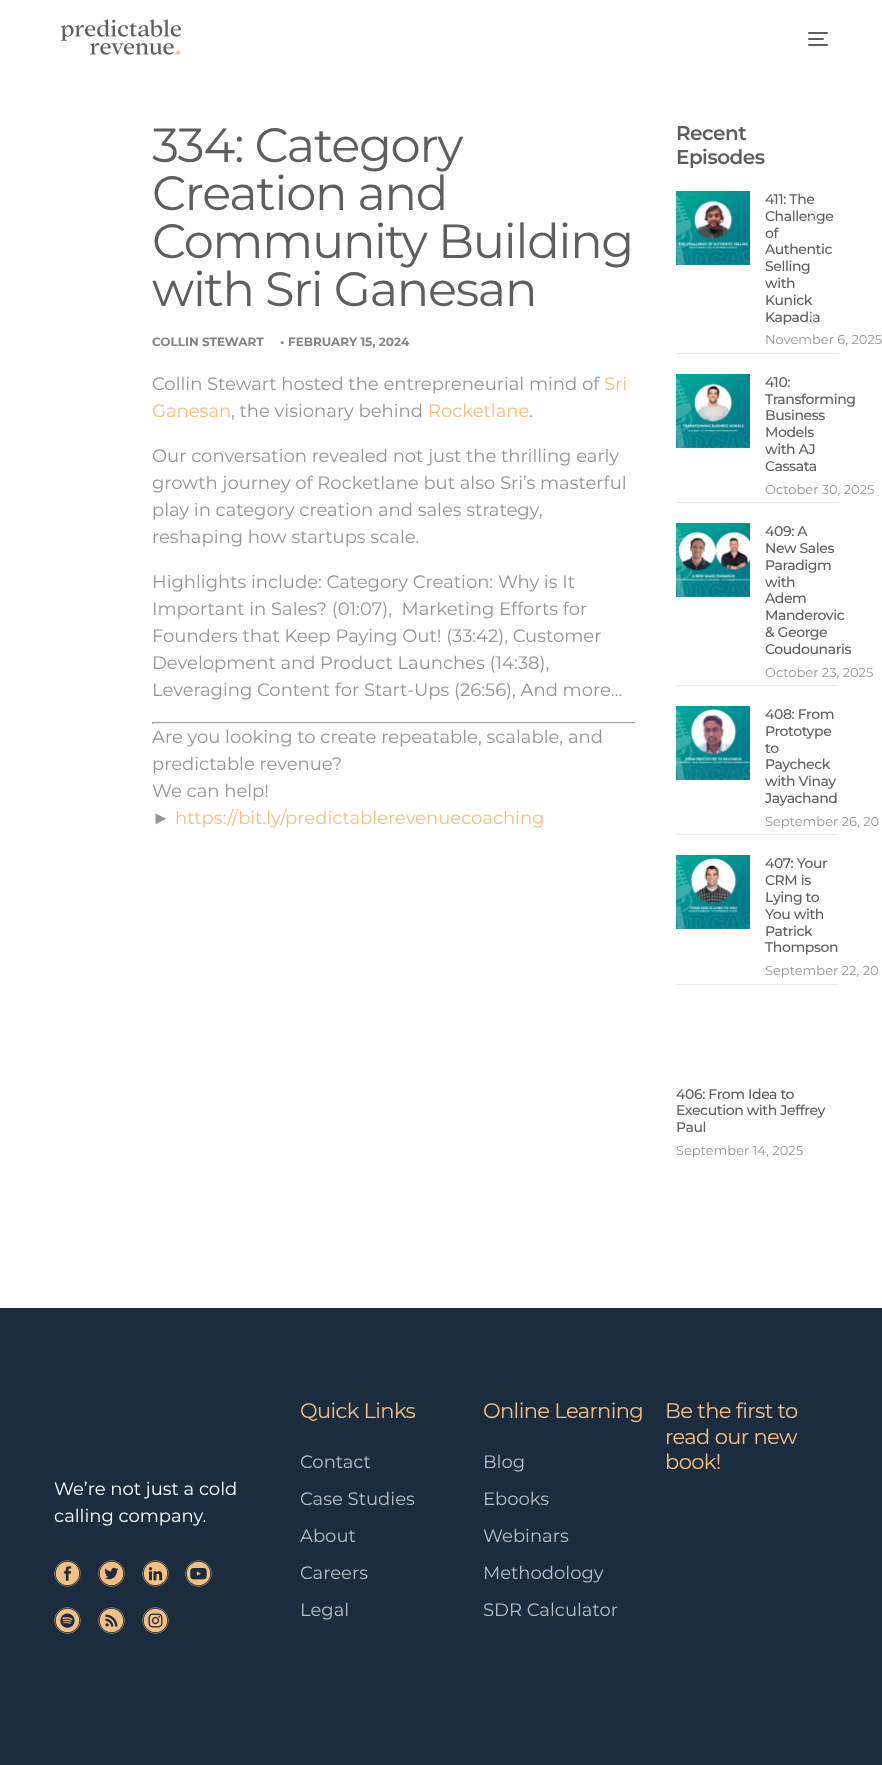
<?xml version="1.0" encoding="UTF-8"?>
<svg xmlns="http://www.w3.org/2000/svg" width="882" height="1765">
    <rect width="100%" height="100%" fill="#FFFFFF"/>
    <image x="60" y="19" width="121" height="36" href="img_01.png"/>
    <rect x="808" y="32" width="20" height="2" rx="1" fill="#5E5E5E"/>
    <rect x="808" y="38" width="16" height="2" rx="1" fill="#5E5E5E"/>
    <rect x="808" y="44" width="20" height="2" rx="1" fill="#5E5E5E"/>
    <text font-family="Montserrat" font-size="48" letter-spacing="-1.25" fill="#5E5E5E">
        <tspan x="152" y="162">334: Category</tspan>
        <tspan x="152" y="210">Creation and</tspan>
        <tspan x="152" y="258">Community Building</tspan>
        <tspan x="152" y="306">with Sri Ganesan</tspan>
    </text>
    <text x="152" y="346" font-family="Montserrat" font-size="12" font-weight="700" fill="#858585">COLLIN STEWART</text>
    <text x="280" y="344" font-family="Montserrat" font-size="18" font-weight="600" letter-spacing="4" fill="#858585">.</text>
    <text x="288" y="346" font-family="Montserrat" font-size="12" font-weight="700" fill="#858585">FEBRUARY 15, 2024</text>
    <text x="152" y="390" font-family="Montserrat" font-size="18" fill="#94959B">Collin Stewart hosted the entrepreneurial mind of</text>
    <text x="604" y="390" font-family="Montserrat" font-size="18" fill="#F5BF83">Sri</text>
    <text x="152" y="417" font-family="Montserrat" font-size="18" fill="#F5BF83">Ganesan</text>
    <text x="231" y="417" font-family="Montserrat" font-size="18" fill="#94959B">, the visionary behind</text>
    <text x="428" y="417" font-family="Montserrat" font-size="18" fill="#F5BF83">Rocketlane</text>
    <text x="529" y="417" font-family="Montserrat" font-size="18" fill="#94959B">.</text>
    <text font-family="Montserrat" font-size="18" fill="#94959B">
        <tspan x="152" y="462">Our conversation revealed not just the thrilling early</tspan>
        <tspan x="152" y="489">growth journey of Rocketlane but also Sri’s masterful</tspan>
        <tspan x="152" y="516">play in category creation and sales strategy,</tspan>
        <tspan x="152" y="543">reshaping how startups scale.</tspan>
    </text>
    <text font-family="Montserrat" font-size="18" fill="#94959B" xml:space="preserve"><tspan x="152" y="588">Highlights include: Category Creation: Why is It</tspan><tspan x="152" y="615">Important in Sales? (01:07),  Marketing Efforts for</tspan><tspan x="152" y="642">Founders that Keep Paying Out! (33:42), Customer</tspan><tspan x="152" y="669">Development and Product Launches (14:38),</tspan><tspan x="152" y="696">Leveraging Content for Start-Ups (26:56), And more…</tspan></text>
    <rect x="152" y="722" width="484" height="1" fill="#9F9F9F"/>
    <rect x="635" y="722" width="1" height="2" fill="#EEEEEE"/>
    <rect x="152" y="723" width="484" height="1" fill="#EEEEEE"/>
    <rect x="152" y="722" width="1" height="2" fill="#9F9F9F"/>
    <text font-family="Montserrat" font-size="18" fill="#94959B">
        <tspan x="152" y="743">Are you looking to create repeatable, scalable, and</tspan>
        <tspan x="152" y="770">predictable revenue?</tspan>
        <tspan x="152" y="797">We can help!</tspan>
    </text>
    <text x="152" y="824" font-family="Liberation Serif" font-size="18" fill="#94959B">►</text>
    <text x="175" y="824" font-family="Montserrat" font-size="18" fill="#F5BF83">https://bit.ly/predictablerevenuecoaching</text>
    <text font-family="Montserrat" font-size="20" font-weight="600" letter-spacing="-0.5" fill="#5E5E5E">
        <tspan x="676" y="140">Recent</tspan>
        <tspan x="676" y="164">Episodes</tspan>
    </text>
    <image x="676" y="191" width="74" height="74" href="img_02.png"/>
    <text font-family="Montserrat" font-size="14" font-weight="500" letter-spacing="-0.4" fill="#5E5E5E">
        <tspan x="765" y="204">411: The</tspan>
        <tspan x="765" y="221">Challenge</tspan>
        <tspan x="765" y="238">of</tspan>
        <tspan x="765" y="254">Authentic</tspan>
        <tspan x="765" y="271">Selling</tspan>
        <tspan x="765" y="288">with</tspan>
        <tspan x="765" y="305">Kunick</tspan>
        <tspan x="765" y="322">Kapadia</tspan>
    </text>
    <text x="765" y="344" font-family="Montserrat" font-size="13" fill="#94959B">November 6, 2025</text>
    <rect x="676" y="353" width="162" height="1" fill="#EBEBEB"/>
    <image x="676" y="374" width="74" height="74" href="img_03.png"/>
    <text font-family="Montserrat" font-size="14" font-weight="500" letter-spacing="-0.4" fill="#5E5E5E">
        <tspan x="765" y="387">410:</tspan>
        <tspan x="765" y="404">Transforming</tspan>
        <tspan x="765" y="420">Business</tspan>
        <tspan x="765" y="437">Models</tspan>
        <tspan x="765" y="454">with AJ</tspan>
        <tspan x="765" y="471">Cassata</tspan>
    </text>
    <text x="765" y="494" font-family="Montserrat" font-size="13" fill="#94959B">October 30, 2025</text>
    <rect x="676" y="502" width="162" height="1" fill="#EBEBEB"/>
    <image x="676" y="523" width="74" height="74" href="img_04.png"/>
    <text font-family="Montserrat" font-size="14" font-weight="500" letter-spacing="-0.4" fill="#5E5E5E">
        <tspan x="765" y="536">409: A</tspan>
        <tspan x="765" y="553">New Sales</tspan>
        <tspan x="765" y="570">Paradigm</tspan>
        <tspan x="765" y="587">with</tspan>
        <tspan x="765" y="603">Adem</tspan>
        <tspan x="765" y="620">Manderovic</tspan>
        <tspan x="765" y="637">&amp; George</tspan>
        <tspan x="765" y="654">Coudounaris</tspan>
    </text>
    <text x="765" y="677" font-family="Montserrat" font-size="13" fill="#94959B">October 23, 2025</text>
    <rect x="676" y="685" width="162" height="1" fill="#EBEBEB"/>
    <image x="676" y="706" width="74" height="74" href="img_05.png"/>
    <text font-family="Montserrat" font-size="14" font-weight="500" letter-spacing="-0.4" fill="#5E5E5E">
        <tspan x="765" y="719">408: From</tspan>
        <tspan x="765" y="736">Prototype</tspan>
        <tspan x="765" y="753">to</tspan>
        <tspan x="765" y="769">Paycheck</tspan>
        <tspan x="765" y="786">with Vinay</tspan>
        <tspan x="765" y="803">Jayachand</tspan>
    </text>
    <text x="765" y="826" font-family="Montserrat" font-size="13" fill="#94959B">September 26, 20</text>
    <rect x="676" y="834" width="162" height="1" fill="#EBEBEB"/>
    <image x="676" y="855" width="74" height="74" href="img_06.png"/>
    <text font-family="Montserrat" font-size="14" font-weight="500" letter-spacing="-0.4" fill="#5E5E5E">
        <tspan x="765" y="868">407: Your</tspan>
        <tspan x="765" y="885">CRM is</tspan>
        <tspan x="765" y="902">Lying to</tspan>
        <tspan x="765" y="919">You with</tspan>
        <tspan x="765" y="936">Patrick</tspan>
        <tspan x="765" y="952">Thompson</tspan>
    </text>
    <text x="765" y="975" font-family="Montserrat" font-size="13" fill="#94959B">September 22, 20</text>
    <rect x="676" y="984" width="162" height="1" fill="#EBEBEB"/>
    <text font-family="Montserrat" font-size="14" font-weight="500" letter-spacing="-0.4" fill="#5E5E5E">
        <tspan x="676" y="1099">406: From Idea to</tspan>
        <tspan x="676" y="1115">Execution with Jeffrey</tspan>
        <tspan x="676" y="1132">Paul</tspan>
    </text>
    <text x="676" y="1155" font-family="Montserrat" font-size="13" fill="#94959B">September 14, 2025</text>
    <rect x="0" y="1308" width="882" height="457" fill="#1A2C3E"/>
    <text x="300" y="1418" font-family="Montserrat" font-size="21" letter-spacing="-0.6" fill="#F5BF83">Quick Links</text>
    <text x="300" y="1468" font-family="Montserrat" font-size="18" fill="#B9BFC4">Contact</text>
    <text x="300" y="1505" font-family="Montserrat" font-size="18" fill="#B9BFC4">Case Studies</text>
    <text x="300" y="1542" font-family="Montserrat" font-size="18" fill="#B9BFC4">About</text>
    <text x="300" y="1579" font-family="Montserrat" font-size="18" fill="#B9BFC4">Careers</text>
    <text x="300" y="1616" font-family="Montserrat" font-size="18" fill="#B9BFC4">Legal</text>
    <text x="483" y="1418" font-family="Montserrat" font-size="21" letter-spacing="-0.6" fill="#F5BF83">Online Learning</text>
    <text x="483" y="1468" font-family="Montserrat" font-size="18" fill="#B9BFC4">Blog</text>
    <text x="483" y="1505" font-family="Montserrat" font-size="18" fill="#B9BFC4">Ebooks</text>
    <text x="483" y="1542" font-family="Montserrat" font-size="18" fill="#B9BFC4">Webinars</text>
    <text x="483" y="1579" font-family="Montserrat" font-size="18" fill="#B9BFC4">Methodology</text>
    <text x="483" y="1616" font-family="Montserrat" font-size="18" fill="#B9BFC4">SDR Calculator</text>
    <text font-family="Montserrat" font-size="21" letter-spacing="-0.6" fill="#F5BF83">
        <tspan x="665" y="1418">Be the first to</tspan>
        <tspan x="665" y="1444">read our new</tspan>
        <tspan x="665" y="1469">book!</tspan>
    </text>
    <text font-family="Montserrat" font-size="18" fill="#FFFFFF">
        <tspan x="54" y="1495">We’re not just a cold</tspan>
        <tspan x="54" y="1522">calling company.</tspan>
    </text>
    <image x="54" y="1560" width="27" height="27" href="img_07.png"/>
    <image x="98" y="1560" width="27" height="27" href="img_08.png"/>
    <image x="142" y="1560" width="27" height="27" href="img_09.png"/>
    <image x="185" y="1560" width="27" height="27" href="img_10.png"/>
    <image x="54" y="1607" width="27" height="27" href="img_11.png"/>
    <image x="98" y="1607" width="27" height="27" href="img_12.png"/>
    <image x="142" y="1607" width="27" height="27" href="img_13.png"/>
    <text x="818" y="222" transform="rotate(-90 818 222)" font-family="Liberation Serif" font-size="16" fill="#DDDDDD">î¤</text>
    <text x="818" y="325" transform="rotate(-90 818 325)" font-family="Liberation Serif" font-size="16" fill="#DDDDDD">î¤</text>
</svg>
